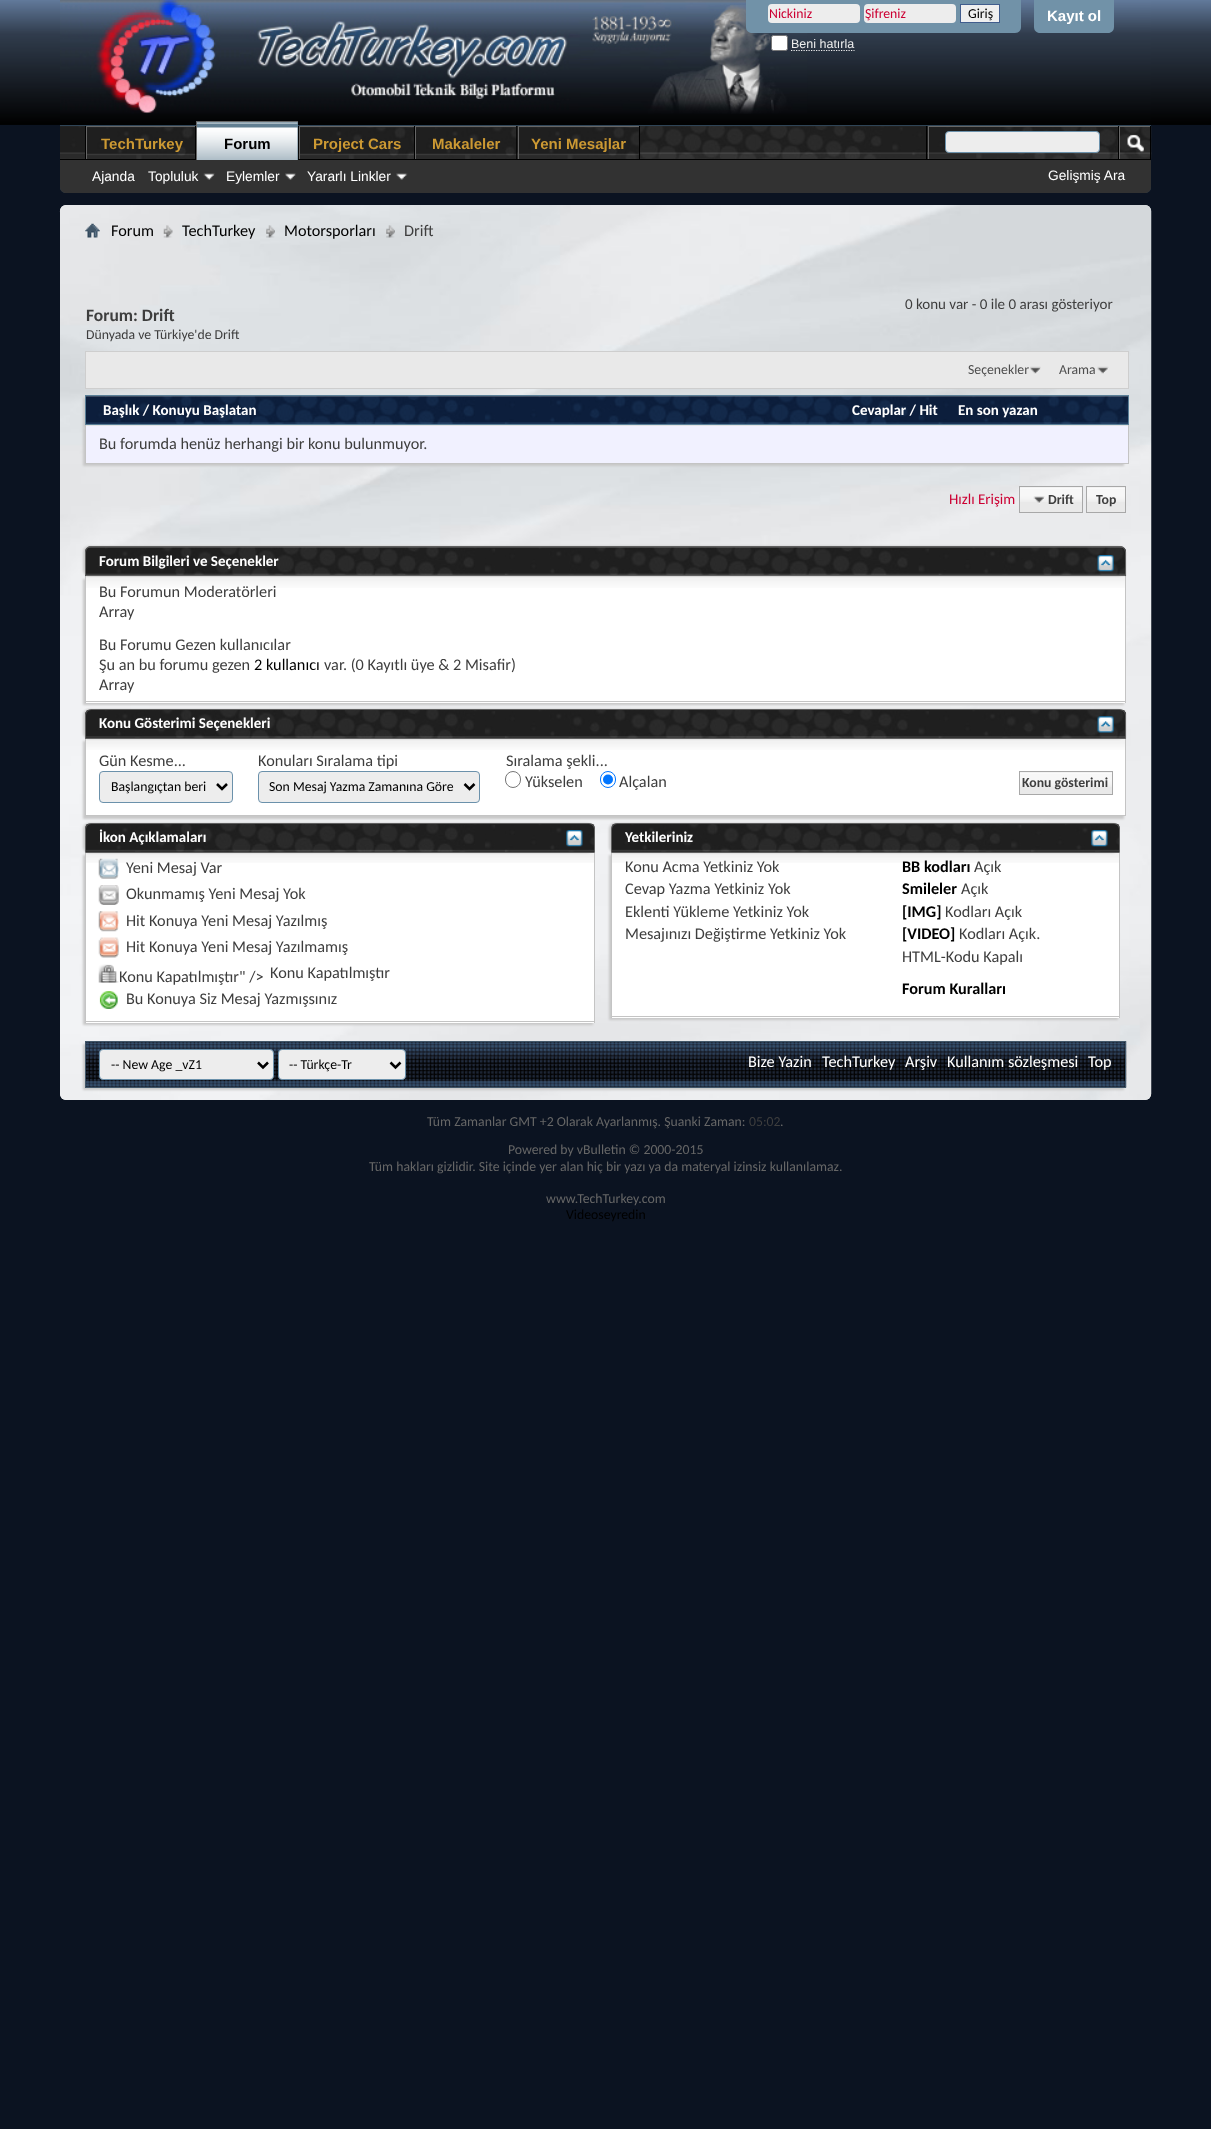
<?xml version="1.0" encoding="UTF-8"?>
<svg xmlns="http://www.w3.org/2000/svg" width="1211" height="2129">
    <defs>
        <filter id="blur1" x="-50%" y="-200%" width="200%" height="500%"><feGaussianBlur stdDeviation="1"/></filter>
    </defs>
    <rect width="100%" height="100%" fill="#0B1321"/>
    <image x="0" y="0" width="1211" height="125" href="img_01.png"/>
    <path d="M 60 0 H 1151 V 187 C 1151 190.5 1148.5 193 1145 193 H 66 C 62.5 193 60 190.5 60 187 Z" fill="#2F4456"/>
    <image x="60" y="0" width="1091" height="125" href="img_02.png"/>
    <image x="60" y="0" width="748" height="114" href="img_03.png"/>
    <path d="M 746 0 H 1021 V 27 C 1021 30.5 1018.5 33 1015 33 H 752 C 748.5 33 746 30.5 746 27 Z" fill="#7192A8"/>
    <rect x="768" y="4" width="92" height="19" rx="4" fill="#EDEDED"/>
    <text x="769" y="18" font-family="Carlito" font-size="13.75" fill="#CC0033">Nickiniz</text>
    <rect x="864" y="4" width="92" height="19" rx="4" fill="#EDEDED"/>
    <text x="865" y="18" font-family="Carlito" font-size="13.75" fill="#CC0033">Şifreniz</text>
    <rect x="960.5" y="4.5" width="39" height="18" fill="#EFEFEF" stroke="#415D8D"/>
    <text x="968" y="18" font-family="Carlito" font-size="13.75" fill="#000000">Giriş</text>
    <rect x="771.5" y="35.5" width="16" height="15" rx="2" fill="#FFFFFF" stroke="#767676"/>
    <text x="791" y="48" font-family="Liberation Sans" font-size="12.5" fill="#EDEDED">Beni hatırla</text>
    <path d="M 791 50.5 H 854.5" fill="none" stroke="#EDEDED" stroke-width="1.2" stroke-dasharray="1.25 1.25"/>
    <path d="M 1034 0 H 1114 V 27 C 1114 30.5 1111.5 33 1108 33 H 1040 C 1036.5 33 1034 30.5 1034 27 Z" fill="#7192A8"/>
    <text x="1047" y="21" font-family="Liberation Sans" font-size="15" font-weight="700" fill="#FFFFFF">Kayıt ol</text>
    <path d="M 60 126 H 1151 V 187 C 1151 190.5 1148.5 193 1145 193 H 66 C 62.5 193 60 190.5 60 187 Z" fill="#323232"/>
    <image x="60" y="126" width="1092" height="33" href="img_04.png"/>
    <rect x="195" y="126" width="1" height="34" fill="#000000"/>
    <rect x="85" y="126" width="1" height="34" fill="#000000"/>
    <image x="87" y="127" width="108" height="32" href="img_05.png"/>
    <rect x="86" y="126" width="109" height="1" fill="#666666"/>
    <rect x="86" y="126" width="1" height="34" fill="#666666"/>
    <text x="101" y="149" font-family="Liberation Sans" font-size="15" font-weight="700" fill="#CC9933">TechTurkey</text>
    <rect x="298" y="126" width="1" height="33" fill="#000000"/>
    <rect x="414" y="126" width="1" height="34" fill="#000000"/>
    <image x="298" y="126" width="116" height="33" href="img_07.png"/>
    <rect x="299" y="126" width="115" height="1" fill="#666666"/>
    <rect x="299" y="126" width="1" height="34" fill="#666666"/>
    <rect x="516" y="126" width="1" height="34" fill="#000000"/>
    <image x="416" y="126" width="101" height="33" href="img_08.png"/>
    <rect x="415" y="126" width="101" height="1" fill="#666666"/>
    <rect x="415" y="126" width="1" height="34" fill="#666666"/>
    <rect x="639" y="126" width="1" height="34" fill="#000000"/>
    <image x="517" y="126" width="122" height="33" href="img_09.png"/>
    <rect x="518" y="126" width="121" height="1" fill="#666666"/>
    <rect x="518" y="126" width="1" height="34" fill="#666666"/>
    <rect x="60" y="159" width="1091" height="1" fill="#000000"/>
    <rect x="197" y="122" width="101" height="38" fill="#617E91"/>
    <image x="197" y="122" width="101" height="38" href="img_06.png"/>
    <rect x="196" y="121" width="102" height="1" fill="#666666"/>
    <rect x="196" y="121" width="1" height="39" fill="#666666"/>
    <text x="224" y="149" font-family="Liberation Sans" font-size="15" font-weight="700" fill="#000000">Forum</text>
    <text x="313" y="149" font-family="Liberation Sans" font-size="15" font-weight="700" fill="#CC9933">Project Cars</text>
    <text x="432" y="149" font-family="Liberation Sans" font-size="15" font-weight="700" fill="#CC9933">Makaleler</text>
    <text x="531" y="149" font-family="Liberation Sans" font-size="15" font-weight="700" fill="#CC9933">Yeni Mesajlar</text>
    <text x="92" y="181" font-family="Liberation Sans" font-size="13.75" fill="#FFFFFF">Ajanda</text>
    <text x="148" y="181" font-family="Liberation Sans" font-size="13.75" fill="#FFFFFF">Topluluk</text>
    <image x="203" y="173" width="12" height="7" href="img_10.png"/>
    <text x="226" y="181" font-family="Liberation Sans" font-size="13.75" fill="#FFFFFF">Eylemler</text>
    <image x="285" y="173" width="11" height="7" href="img_11.png"/>
    <text x="307" y="181" font-family="Liberation Sans" font-size="13.75" fill="#FFFFFF">Yararlı Linkler</text>
    <image x="396" y="173" width="12" height="7" href="img_12.png"/>
    <rect x="926" y="126" width="1" height="33" fill="#000000"/>
    <rect x="928" y="126" width="190" height="1" fill="#666666"/>
    <rect x="928" y="126" width="1" height="33" fill="#666666"/>
    <rect x="945.5" y="131.5" width="154" height="21" rx="3.5" fill="#EDEDED" stroke="#6B91AB"/>
    <rect x="1150" y="126" width="1" height="33" fill="#000000"/>
    <rect x="1118" y="126" width="1" height="33" fill="#000000"/>
    <rect x="1119" y="126" width="31" height="1" fill="#666666"/>
    <rect x="1119" y="126" width="1" height="33" fill="#666666"/>
    <image x="1127" y="134" width="17" height="19" href="img_13.png"/>
    <text x="1048" y="180" font-family="Liberation Sans" font-size="13.75" fill="#FFFFFF">Gelişmiş Ara</text>
    <rect x="60" y="205" width="1091" height="895" rx="6" fill="#F8F8F8"/>
    <image x="59" y="205" width="1093" height="895" href="img_14.png"/>
    <image x="85" y="223" width="15" height="15" href="img_15.png"/>
    <image x="163" y="225" width="10" height="13" href="img_16.png"/>
    <text x="111" y="236" font-family="Carlito" font-size="16.25" fill="#000000">Forum</text>
    <image x="266" y="225" width="9" height="13" href="img_17.png"/>
    <text x="182" y="236" font-family="Carlito" font-size="16.25" fill="#000000">TechTurkey</text>
    <image x="386" y="225" width="9" height="13" href="img_18.png"/>
    <text x="284" y="236" font-family="Carlito" font-size="16.25" fill="#000000">Motorsporları</text>
    <text x="404" y="236" font-family="Carlito" font-size="16.25" fill="#3E3E3E">Drift</text>
    <text x="905" y="309" font-family="Carlito" font-size="15" fill="#3E3E3E">0 konu var - 0 ile 0 arası gösteriyor</text>
    <text x="86" y="321" font-family="Carlito" font-size="17.5" font-weight="700" fill="#3E3E3E">Forum: Drift</text>
    <text x="86" y="339" font-family="Carlito" font-size="13.75" fill="#3E3E3E">Dünyada ve Türkiye'de Drift</text>
    <rect x="85.5" y="351.5" width="1043" height="37" fill="#E9E9E9" stroke="#CECECE"/>
    <image x="1030" y="366" width="11" height="9" href="img_19.png"/>
    <text x="968" y="374" font-family="Carlito" font-size="13.75" fill="#4E4E4E">Seçenekler</text>
    <image x="1097" y="366" width="12" height="8" href="img_20.png"/>
    <text x="1059" y="374" font-family="Carlito" font-size="13.75" fill="#4E4E4E">Arama</text>
    <rect x="83" y="398" width="1043" height="30" fill="#C8C8C8" filter="url(#blur1)"/>
    <image x="86" y="396" width="1042" height="28" href="img_21.png"/>
    <rect x="85.5" y="395.5" width="1043" height="29" fill="none" stroke="#5A7F97"/>
    <text x="103" y="415" font-family="Carlito" font-size="15" font-weight="700" fill="#FFFFFF">Başlık / Konuyu Başlatan</text>
    <text x="852" y="415" font-family="Carlito" font-size="15" font-weight="700" fill="#FFFFFF">Cevaplar / Hit</text>
    <text x="958" y="415" font-family="Carlito" font-size="15" font-weight="700" fill="#FFFFFF">En son yazan</text>
    <rect x="83" y="428" width="1041" height="38" fill="#C8C8C8" filter="url(#blur1)"/>
    <rect x="86" y="426" width="1042" height="37" fill="#F1F1FF"/>
    <rect x="85" y="425" width="1044" height="1" fill="#E2E2E3"/>
    <rect x="1128" y="425" width="1" height="39" fill="#C4C4C4"/>
    <rect x="85" y="463" width="1044" height="1" fill="#C4C4C4"/>
    <rect x="85" y="425" width="1" height="39" fill="#C4C4C4"/>
    <text x="99" y="449" font-family="Carlito" font-size="16.25" fill="#3E3E3E">Bu forumda henüz herhangi bir konu bulunmuyor.</text>
    <text x="949" y="504" font-family="Carlito" font-size="15" fill="#CC0033">Hızlı Erişim</text>
    <rect x="1020" y="487" width="62" height="25" fill="#E9E9E9"/>
    <image x="1018" y="487" width="64" height="15" href="img_22.png"/>
    <rect x="1087" y="487" width="38" height="25" fill="#E9E9E9"/>
    <image x="1087" y="487" width="40" height="15" href="img_23.png"/>
    <rect x="1019.5" y="486.5" width="63" height="26" fill="none" stroke="#A8A8A8"/>
    <image x="1033" y="496" width="12" height="8" href="img_24.png"/>
    <text x="1048" y="504" font-family="Carlito" font-size="13.75" font-weight="700" fill="#3E3E3E">Drift</text>
    <rect x="1086.5" y="486.5" width="39" height="26" fill="none" stroke="#A8A8A8"/>
    <text x="1096" y="504" font-family="Carlito" font-size="13.75" font-weight="700" fill="#3E3E3E">Top</text>
    <rect x="83" y="579" width="1041" height="126" fill="#C8C8C8" filter="url(#blur1)"/>
    <rect x="86" y="576" width="1039" height="127" fill="#FFFFFF"/>
    <image x="86" y="576" width="1039" height="12" href="img_27.png"/>
    <rect x="1125" y="576" width="1" height="127" fill="#C4C4C4"/>
    <rect x="85" y="701" width="1041" height="1" fill="#C4C4C4"/>
    <rect x="85" y="576" width="1" height="127" fill="#C4C4C4"/>
    <rect x="83" y="546" width="1041" height="30" rx="6" fill="#C8C8C8" filter="url(#blur1)"/>
    <path d="M 91 546 H 1120 C 1123.5 546 1126 548.5 1126 552 V 576 H 85 V 552 C 85 548.5 87.5 546 91 546 Z" fill="#707070"/>
    <image x="85" y="547" width="1042" height="30" href="img_25.png"/>
    <path d="M 91 546.5 H 1120 C 1123 546.5 1125.5 549 1125.5 552 V 575.5 H 85.5 V 552 C 85.5 549 88 546.5 91 546.5 Z" fill="none" stroke="#606060"/>
    <text x="99" y="566" font-family="Carlito" font-size="15" font-weight="700" fill="#FFFFFF">Forum Bilgileri ve Seçenekler</text>
    <image x="1097" y="555" width="17" height="17" href="img_26.png"/>
    <text font-family="Carlito" font-size="16.25" fill="#3E3E3E">
        <tspan x="99" y="597">Bu Forumun Moderatörleri</tspan>
        <tspan x="99" y="617">Array</tspan>
    </text>
    <text font-family="Carlito" font-size="16.25" fill="#3E3E3E">
        <tspan x="99" y="650">Bu Forumu Gezen kullanıcılar</tspan>
        <tspan x="99" y="670">Şu an bu forumu gezen</tspan>
    </text>
    <text x="254" y="670" font-family="Carlito" font-size="16.25" fill="#000000">2 kullanıcı</text>
    <text x="324" y="670" font-family="Carlito" font-size="16.25" fill="#3E3E3E">var. (0 Kayıtlı üye &amp; 2 Misafir)</text>
    <text x="99" y="690" font-family="Carlito" font-size="16.25" fill="#3E3E3E">Array</text>
    <rect x="83" y="741" width="1041" height="78" fill="#C8C8C8" filter="url(#blur1)"/>
    <rect x="86" y="739" width="1039" height="76" fill="#FFFFFF"/>
    <image x="86" y="739" width="1039" height="11" href="img_30.png"/>
    <rect x="1125" y="739" width="1" height="77" fill="#C4C4C4"/>
    <rect x="85" y="815" width="1041" height="1" fill="#C4C4C4"/>
    <rect x="85" y="739" width="1" height="77" fill="#C4C4C4"/>
    <rect x="83" y="709" width="1041" height="30" rx="6" fill="#C8C8C8" filter="url(#blur1)"/>
    <image x="85" y="710" width="1042" height="29" href="img_28.png"/>
    <path d="M 91 709.5 H 1120 C 1123 709.5 1125.5 712 1125.5 715 V 738.5 H 85.5 V 715 C 85.5 712 88 709.5 91 709.5 Z" fill="none" stroke="#606060"/>
    <text x="99" y="728" font-family="Carlito" font-size="15" font-weight="700" fill="#FFFFFF">Konu Gösterimi Seçenekleri</text>
    <image x="1097" y="716" width="17" height="17" href="img_29.png"/>
    <text x="99" y="766" font-family="Carlito" font-size="16.25" fill="#3E3E3E">Gün Kesme...</text>
    <rect x="99.5" y="771.5" width="133" height="31" rx="3.5" fill="#EDEDED" stroke="#6B91AB"/>
    <path d="M 217 784 L 222 789 L 227 784" fill="none" stroke="#000000" stroke-width="2.5"/>
    <text x="111" y="791" font-family="Carlito" font-size="13.75" fill="#000000">Başlangıçtan beri</text>
    <text x="258" y="766" font-family="Carlito" font-size="16.25" fill="#3E3E3E">Konuları Sıralama tipi</text>
    <rect x="258.5" y="771.5" width="221" height="31" rx="3.5" fill="#EDEDED" stroke="#6B91AB"/>
    <path d="M 464.5 784 L 469.5 789 L 474.5 784" fill="none" stroke="#000000" stroke-width="2.5"/>
    <text x="269" y="791" font-family="Carlito" font-size="13.75" fill="#000000">Son Mesaj Yazma Zamanına Göre</text>
    <text x="506" y="766" font-family="Carlito" font-size="16.25" fill="#3E3E3E">Sıralama şekli...</text>
    <rect x="505.5" y="771.5" width="15" height="16" rx="7.5" fill="none" stroke="#767676"/>
    <text x="525" y="787" font-family="Carlito" font-size="16.25" fill="#3E3E3E">Yükselen</text>
    <rect x="600.5" y="771.5" width="15" height="16" rx="7.5" fill="none" stroke="#0075FF"/>
    <circle cx="608" cy="779.5" r="5" fill="#0075FF"/>
    <text x="619" y="787" font-family="Carlito" font-size="16.25" fill="#3E3E3E">Alçalan</text>
    <rect x="1020" y="772" width="92" height="22" fill="#E9E9E9"/>
    <image x="1020" y="772" width="92" height="15" href="img_31.png"/>
    <rect x="1019.5" y="771.5" width="93" height="23" fill="none" stroke="#A8A8A8"/>
    <text x="1022" y="787" font-family="Carlito" font-size="13.75" font-weight="700" fill="#3E3E3E">Konu gösterimi</text>
    <rect x="83" y="855" width="510" height="170" fill="#C8C8C8" filter="url(#blur1)"/>
    <rect x="86" y="853" width="508" height="170" fill="#FFFFFF"/>
    <image x="86" y="853" width="508" height="10" href="img_34.png"/>
    <rect x="594" y="853" width="1" height="170" fill="#C4C4C4"/>
    <rect x="85" y="1021" width="510" height="1" fill="#C4C4C4"/>
    <rect x="85" y="853" width="1" height="170" fill="#C4C4C4"/>
    <rect x="83" y="823" width="510" height="30" rx="6" fill="#C8C8C8" filter="url(#blur1)"/>
    <image x="85" y="823" width="510" height="29" href="img_32.png"/>
    <path d="M 91 823.5 H 589 C 592 823.5 594.5 826 594.5 829 V 852.5 H 85.5 V 829 C 85.5 826 88 823.5 91 823.5 Z" fill="none" stroke="#606060"/>
    <text x="99" y="842" font-family="Carlito" font-size="15" font-weight="700" fill="#FFFFFF">İkon Açıklamaları</text>
    <image x="566" y="830" width="17" height="17" href="img_33.png"/>
    <image x="98" y="858" width="21" height="21" href="img_35.png"/>
    <text x="126" y="873" font-family="Carlito" font-size="16.25" fill="#3E3E3E">Yeni Mesaj Var</text>
    <image x="98" y="885" width="21" height="20" href="img_36.png"/>
    <text x="126" y="899" font-family="Carlito" font-size="16.25" fill="#3E3E3E">Okunmamış Yeni Mesaj Yok</text>
    <image x="98" y="911" width="21" height="21" href="img_37.png"/>
    <text x="126" y="926" font-family="Carlito" font-size="16.25" fill="#3E3E3E">Hit Konuya Yeni Mesaj Yazılmış</text>
    <image x="98" y="937" width="21" height="21" href="img_38.png"/>
    <text x="126" y="952" font-family="Carlito" font-size="16.25" fill="#3E3E3E">Hit Konuya Yeni Mesaj Yazılmamış</text>
    <image x="98" y="964" width="21" height="19" href="img_39.png"/>
    <text x="119" y="982" font-family="Carlito" font-size="16.25" fill="#3E3E3E">Konu Kapatılmıştır" /&gt;</text>
    <text x="270" y="978" font-family="Carlito" font-size="16.25" fill="#3E3E3E">Konu Kapatılmıştır</text>
    <image x="99" y="991" width="19" height="18" href="img_40.png"/>
    <text x="126" y="1004" font-family="Carlito" font-size="16.25" fill="#3E3E3E">Bu Konuya Siz Mesaj Yazmışsınız</text>
    <rect x="609" y="855" width="509" height="165" fill="#C8C8C8" filter="url(#blur1)"/>
    <rect x="612" y="853" width="507" height="165" fill="#FFFFFF"/>
    <image x="612" y="853" width="507" height="10" href="img_43.png"/>
    <rect x="1119" y="853" width="1" height="165" fill="#C4C4C4"/>
    <rect x="611" y="1016" width="509" height="1" fill="#C4C4C4"/>
    <rect x="611" y="853" width="1" height="165" fill="#C4C4C4"/>
    <rect x="609" y="823" width="509" height="30" rx="6" fill="#C8C8C8" filter="url(#blur1)"/>
    <image x="611" y="823" width="509" height="29" href="img_41.png"/>
    <path d="M 617 823.5 H 1114 C 1117 823.5 1119.5 826 1119.5 829 V 852.5 H 611.5 V 829 C 611.5 826 614 823.5 617 823.5 Z" fill="none" stroke="#606060"/>
    <text x="625" y="842" font-family="Carlito" font-size="15" font-weight="700" fill="#FFFFFF">Yetkileriniz</text>
    <image x="1091" y="830" width="17" height="17" href="img_42.png"/>
    <text font-family="Carlito" font-size="16.25" fill="#3E3E3E">
        <tspan x="625" y="872">Konu Acma Yetkiniz Yok</tspan>
        <tspan x="625" y="894">Cevap Yazma Yetkiniz Yok</tspan>
        <tspan x="625" y="917">Eklenti Yükleme Yetkiniz Yok</tspan>
        <tspan x="625" y="939">Mesajınızı Değiştirme Yetkiniz Yok</tspan>
    </text>
    <text x="902" y="872" font-family="Carlito" font-size="16.25" font-weight="700" fill="#000000">BB kodları</text>
    <text x="974" y="872" font-family="Carlito" font-size="16.25" fill="#3E3E3E">Açık</text>
    <text x="902" y="894" font-family="Carlito" font-size="16.25" font-weight="700" fill="#000000">Smileler</text>
    <text x="961" y="894" font-family="Carlito" font-size="16.25" fill="#3E3E3E">Açık</text>
    <text x="902" y="917" font-family="Carlito" font-size="16.25" font-weight="700" fill="#000000">[IMG]</text>
    <text x="945" y="917" font-family="Carlito" font-size="16.25" fill="#3E3E3E">Kodları Açık</text>
    <text x="902" y="939" font-family="Carlito" font-size="16.25" font-weight="700" fill="#000000">[VIDEO]</text>
    <text x="959" y="939" font-family="Carlito" font-size="16.25" fill="#3E3E3E">Kodları Açık.</text>
    <text x="902" y="962" font-family="Carlito" font-size="16.25" fill="#3E3E3E">HTML-Kodu Kapalı</text>
    <text x="902" y="994" font-family="Carlito" font-size="16.25" font-weight="700" fill="#000000">Forum Kuralları</text>
    <rect x="83" y="1044" width="1041" height="46" fill="#C8C8C8" filter="url(#blur1)"/>
    <image x="86" y="1041" width="1041" height="47" href="img_44.png"/>
    <rect x="85.5" y="1041.5" width="1040" height="46" fill="none" stroke="#425769"/>
    <rect x="99.5" y="1049.5" width="174" height="30" rx="3.5" fill="#EDEDED" stroke="#6B91AB"/>
    <path d="M 258 1062.5 L 263 1067.5 L 268 1062.5" fill="none" stroke="#000000" stroke-width="2.5"/>
    <text x="111" y="1069" font-family="Carlito" font-size="13.75" fill="#000000">-- New Age _vZ1</text>
    <rect x="278.5" y="1049.5" width="127" height="30" rx="3.5" fill="#EDEDED" stroke="#6B91AB"/>
    <path d="M 390.5 1062.5 L 395.5 1067.5 L 400.5 1062.5" fill="none" stroke="#000000" stroke-width="2.5"/>
    <text x="289" y="1069" font-family="Carlito" font-size="13.75" fill="#000000">-- Türkçe-Tr</text>
    <text x="748" y="1067" font-family="Carlito" font-size="16.25" fill="#FFFFFF">Bize Yazin</text>
    <text x="822" y="1067" font-family="Carlito" font-size="16.25" fill="#FFFFFF">TechTurkey</text>
    <text x="905" y="1067" font-family="Carlito" font-size="16.25" fill="#FFFFFF">Arşiv</text>
    <text x="947" y="1067" font-family="Carlito" font-size="16.25" fill="#FFFFFF">Kullanım sözleşmesi</text>
    <text x="1088" y="1067" font-family="Carlito" font-size="16.25" fill="#FFFFFF">Top</text>
    <text x="427" y="1126" font-family="Carlito" font-size="13.75" fill="#666666">Tüm Zamanlar GMT +2 Olarak Ayarlanmış. Şuanki Zaman:</text>
    <text x="749" y="1126" font-family="Carlito" font-size="13.75" fill="#3E3E3E">05:02</text>
    <text x="780" y="1126" font-family="Carlito" font-size="13.75" fill="#666666">.</text>
    <text x="508" y="1154" font-family="Carlito" font-size="13.75" fill="#666666">Powered by vBulletin © 2000-2015</text>
    <text x="369" y="1171" font-family="Carlito" font-size="13.75" fill="#666666">Tüm hakları gizlidir. Site içinde yer alan hiç bir yazı ya da materyal izinsiz kullanılamaz.</text>
    <text x="546" y="1203" font-family="Carlito" font-size="13.75" fill="#666666">www.TechTurkey.com</text>
    <text x="566" y="1219" font-family="Carlito" font-size="13.75" fill="#000000">Videoseyredin</text>
</svg>
